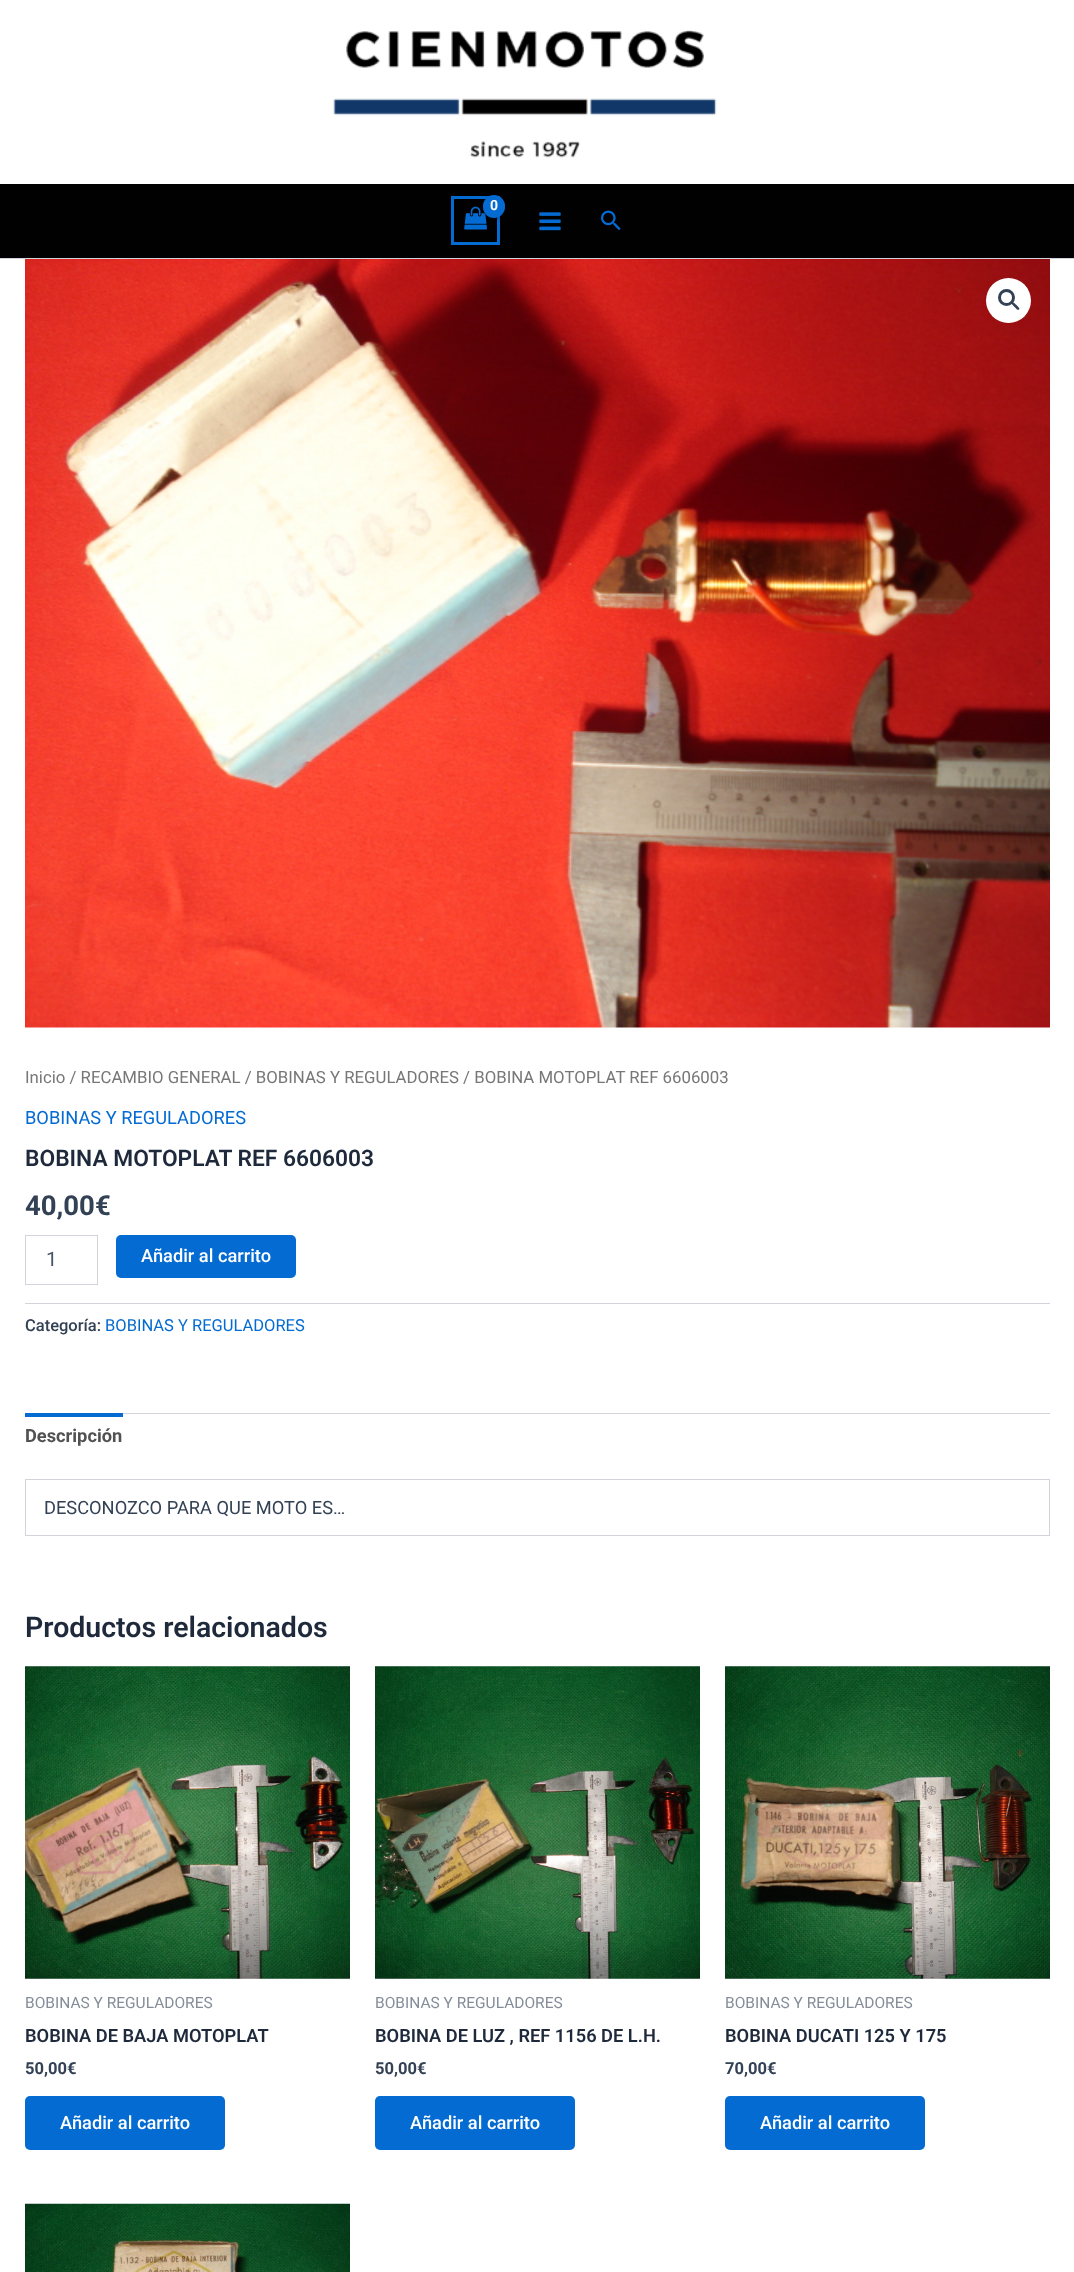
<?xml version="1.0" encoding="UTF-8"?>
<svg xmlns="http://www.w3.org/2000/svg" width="1074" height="2272">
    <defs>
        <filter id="blur1" x="-50%" y="-200%" width="200%" height="500%"><feGaussianBlur stdDeviation="2"/></filter>
    </defs>
    <rect width="100%" height="100%" fill="#FFFFFF"/>
    <image x="333" y="30" width="384" height="128" href="img_01.png"/>
    <rect x="0" y="184" width="1074" height="74" fill="#010101"/>
    <rect x="0" y="258" width="1074" height="1" fill="#D1D5DB"/>
    <rect x="452.5" y="197.5" width="46" height="46" fill="none" stroke="#046BD2" stroke-width="3"/>
    <image x="464" y="206" width="23" height="24" href="img_02.png"/>
    <rect x="484" y="196" width="22" height="23" rx="11" fill="#000000" fill-opacity="0.3" filter="url(#blur1)"/>
    <rect x="483" y="195" width="22" height="23" rx="11" fill="#046BD2"/>
    <text x="490" y="210" font-family="Roboto" font-size="14" font-weight="700" letter-spacing="-1" fill="#FFFFFF">0</text>
    <image x="539" y="212" width="22" height="19" href="img_03.png"/>
    <image x="601" y="210" width="20" height="21" href="img_04.png"/>
    <image x="25" y="259" width="1025" height="769" href="img_05.png"/>
    <circle cx="1008.5" cy="300.5" r="22.5" fill="#FFFFFF"/>
    <circle cx="1006.5" cy="297.5" r="7" fill="none" stroke="#334155" stroke-width="3"/>
    <path d="M 1012 302.5 C 1013.5 301 1015.5 304.5 1016.5 305 C 1017 306 1020.5 308 1019 309.5 C 1017.5 311 1015.5 307.5 1014.5 307 C 1014 306 1010.5 304 1012 302.5 Z" fill="#334155"/>
    <text x="25" y="1083" font-family="Roboto" font-size="16.8" fill="#777777">Inicio / RECAMBIO GENERAL / BOBINAS Y REGULADORES / BOBINA MOTOPLAT REF 6606003</text>
    <text x="25" y="1124" font-family="Roboto" font-size="18.25" fill="#046BD2">BOBINAS Y REGULADORES</text>
    <text x="25" y="1166" font-family="Roboto" font-size="22.75" font-weight="600" fill="#1E293B">BOBINA MOTOPLAT REF 6606003</text>
    <text x="25" y="1215" font-family="Roboto" font-size="27.5" font-weight="700" fill="#334155">40,00€</text>
    <rect x="25.5" y="1235.5" width="72" height="49" fill="none" stroke="#D1D5DB"/>
    <text x="46" y="1266" font-family="Roboto" font-size="20" fill="#475569">1</text>
    <rect x="116" y="1235" width="180" height="43" rx="5" fill="#046BD2"/>
    <text x="141" y="1262" font-family="Roboto" font-size="18.25" font-weight="500" fill="#FFFFFF">Añadir al carrito</text>
    <rect x="25" y="1303" width="1025" height="1" fill="#D1D5DB"/>
    <text x="25" y="1331" font-family="Roboto" font-size="16.5" font-weight="500" fill="#334155">Categoría:</text>
    <text x="105" y="1331" font-family="Roboto" font-size="16.5" fill="#046BD2">BOBINAS Y REGULADORES</text>
    <rect x="123" y="1413" width="927" height="1" fill="#D1D5DB"/>
    <rect x="25" y="1413" width="98" height="4" fill="#046BD2"/>
    <text x="25" y="1442" font-family="Roboto" font-size="18.25" font-weight="700" fill="#515151">Descripción</text>
    <rect x="25" y="1479" width="1025" height="1" fill="#D1D5DB"/>
    <rect x="25" y="1479" width="1" height="57" fill="#D1D5DB"/>
    <rect x="1049" y="1480" width="1" height="56" fill="#D1D5DB"/>
    <rect x="26" y="1535" width="1024" height="1" fill="#D1D5DB"/>
    <text x="44" y="1514" font-family="Roboto" font-size="18.25" fill="#334155">DESCONOZCO PARA QUE MOTO ES…</text>
    <text x="25" y="1637" font-family="Roboto" font-size="28.5" font-weight="600" fill="#1E293B">Productos relacionados</text>
    <image x="25" y="1666" width="325" height="313" href="img_06.png"/>
    <text x="25" y="2008" font-family="Roboto" font-size="15.5" fill="#858D99">BOBINAS Y REGULADORES</text>
    <text x="25" y="2042" font-family="Roboto" font-size="18.25" font-weight="600" fill="#1E293B">BOBINA DE BAJA MOTOPLAT</text>
    <text x="25" y="2074" font-family="Roboto" font-size="16.5" font-weight="700" fill="#334155">50,00€</text>
    <rect x="25" y="2096" width="200" height="54" rx="5" fill="#046BD2"/>
    <text x="60" y="2129" font-family="Roboto" font-size="18.25" font-weight="500" fill="#FFFFFF">Añadir al carrito</text>
    <image x="375" y="1666" width="325" height="313" href="img_07.png"/>
    <text x="375" y="2008" font-family="Roboto" font-size="15.5" fill="#858D99">BOBINAS Y REGULADORES</text>
    <text x="375" y="2042" font-family="Roboto" font-size="18.25" font-weight="600" fill="#1E293B">BOBINA DE LUZ , REF 1156 DE L.H.</text>
    <text x="375" y="2074" font-family="Roboto" font-size="16.5" font-weight="700" fill="#334155">50,00€</text>
    <rect x="375" y="2096" width="200" height="54" rx="5" fill="#046BD2"/>
    <text x="410" y="2129" font-family="Roboto" font-size="18.25" font-weight="500" fill="#FFFFFF">Añadir al carrito</text>
    <image x="725" y="1666" width="325" height="313" href="img_08.png"/>
    <text x="725" y="2008" font-family="Roboto" font-size="15.5" fill="#858D99">BOBINAS Y REGULADORES</text>
    <text x="725" y="2042" font-family="Roboto" font-size="18.25" font-weight="600" fill="#1E293B">BOBINA DUCATI 125 Y 175</text>
    <text x="725" y="2074" font-family="Roboto" font-size="16.5" font-weight="700" fill="#334155">70,00€</text>
    <rect x="725" y="2096" width="200" height="54" rx="5" fill="#046BD2"/>
    <text x="760" y="2129" font-family="Roboto" font-size="18.25" font-weight="500" fill="#FFFFFF">Añadir al carrito</text>
    <image x="25" y="2203" width="325" height="69" href="img_09.png"/>
</svg>
